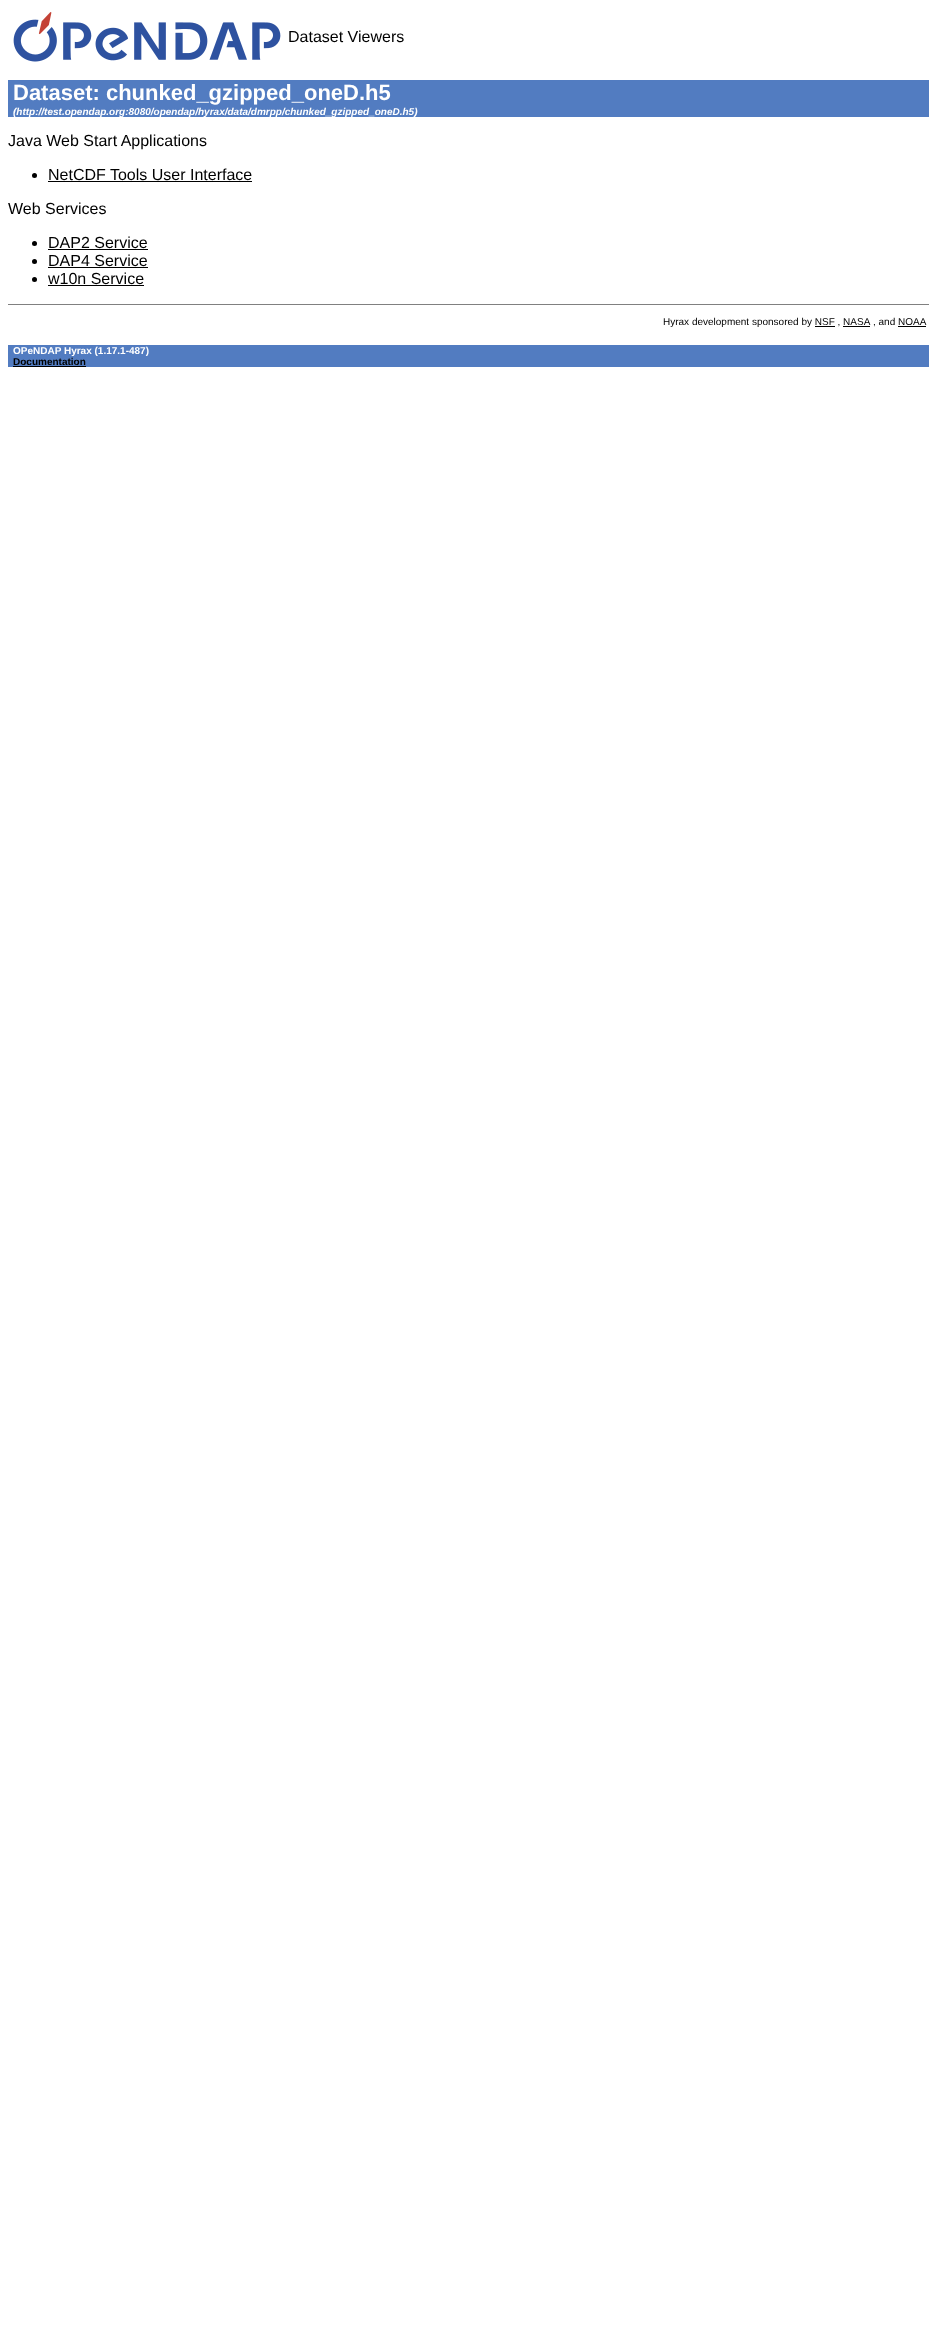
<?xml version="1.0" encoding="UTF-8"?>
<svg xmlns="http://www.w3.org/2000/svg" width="937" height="2332">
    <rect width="100%" height="100%" fill="#FFFFFF"/>
    <image x="13" y="12" width="268" height="50" href="img_01.png"/>
    <text x="288" y="42" font-family="Liberation Sans" font-size="16" fill="#000000">Dataset Viewers</text>
    <rect x="8" y="80" width="921" height="37" fill="#527CC1"/>
    <text x="13" y="100" font-family="Liberation Sans" font-size="22" font-weight="700" fill="#FFFFFF">Dataset: chunked_gzipped_oneD.h5</text>
    <text x="13" y="115" font-family="Liberation Sans" font-size="10" font-weight="700" font-style="italic" fill="#FFFFFF">(http://test.opendap.org:8080/opendap/hyrax/data/dmrpp/chunked_gzipped_oneD.h5)</text>
    <text x="8" y="146" font-family="Liberation Sans" font-size="16" fill="#000000">Java Web Start Applications</text>
    <circle cx="34.5" cy="175.5" r="2.5" fill="#000000"/>
    <text x="48" y="180" font-family="Liberation Sans" font-size="16" fill="#000000">NetCDF Tools User Interface</text>
    <rect x="48" y="181" width="204" height="1" fill="#000000"/>
    <text x="8" y="214" font-family="Liberation Sans" font-size="16" fill="#000000">Web Services</text>
    <circle cx="34.5" cy="243.5" r="2.5" fill="#000000"/>
    <text x="48" y="248" font-family="Liberation Sans" font-size="16" fill="#000000">DAP2 Service</text>
    <rect x="48" y="249" width="100" height="1" fill="#000000"/>
    <circle cx="34.5" cy="261.5" r="2.5" fill="#000000"/>
    <text x="48" y="266" font-family="Liberation Sans" font-size="16" fill="#000000">DAP4 Service</text>
    <rect x="48" y="267" width="100" height="1" fill="#000000"/>
    <circle cx="34.5" cy="279.5" r="2.5" fill="#000000"/>
    <text x="48" y="284" font-family="Liberation Sans" font-size="16" fill="#000000">w10n Service</text>
    <rect x="48" y="285" width="96" height="1" fill="#000000"/>
    <rect x="8" y="304" width="921" height="1" fill="#808080"/>
    <text x="663" y="325" font-family="Liberation Sans" font-size="10" fill="#000000">Hyrax development sponsored by NSF , NASA</text>
    <text x="873" y="325" font-family="Liberation Sans" font-size="10" fill="#000000">, and NOAA</text>
    <rect x="815" y="326" width="20" height="1" fill="#000000"/>
    <rect x="843" y="326" width="27" height="1" fill="#000000"/>
    <rect x="898" y="326" width="28" height="1" fill="#000000"/>
    <rect x="8" y="345" width="921" height="22" fill="#527CC1"/>
    <text x="13" y="354" font-family="Liberation Sans" font-size="10" font-weight="700" fill="#FFFFFF">OPeNDAP Hyrax (1.17.1-487)</text>
    <text x="13" y="365" font-family="Liberation Sans" font-size="10" font-weight="700" fill="#000000">Documentation</text>
    <rect x="13" y="366" width="73" height="1" fill="#000000"/>
</svg>
